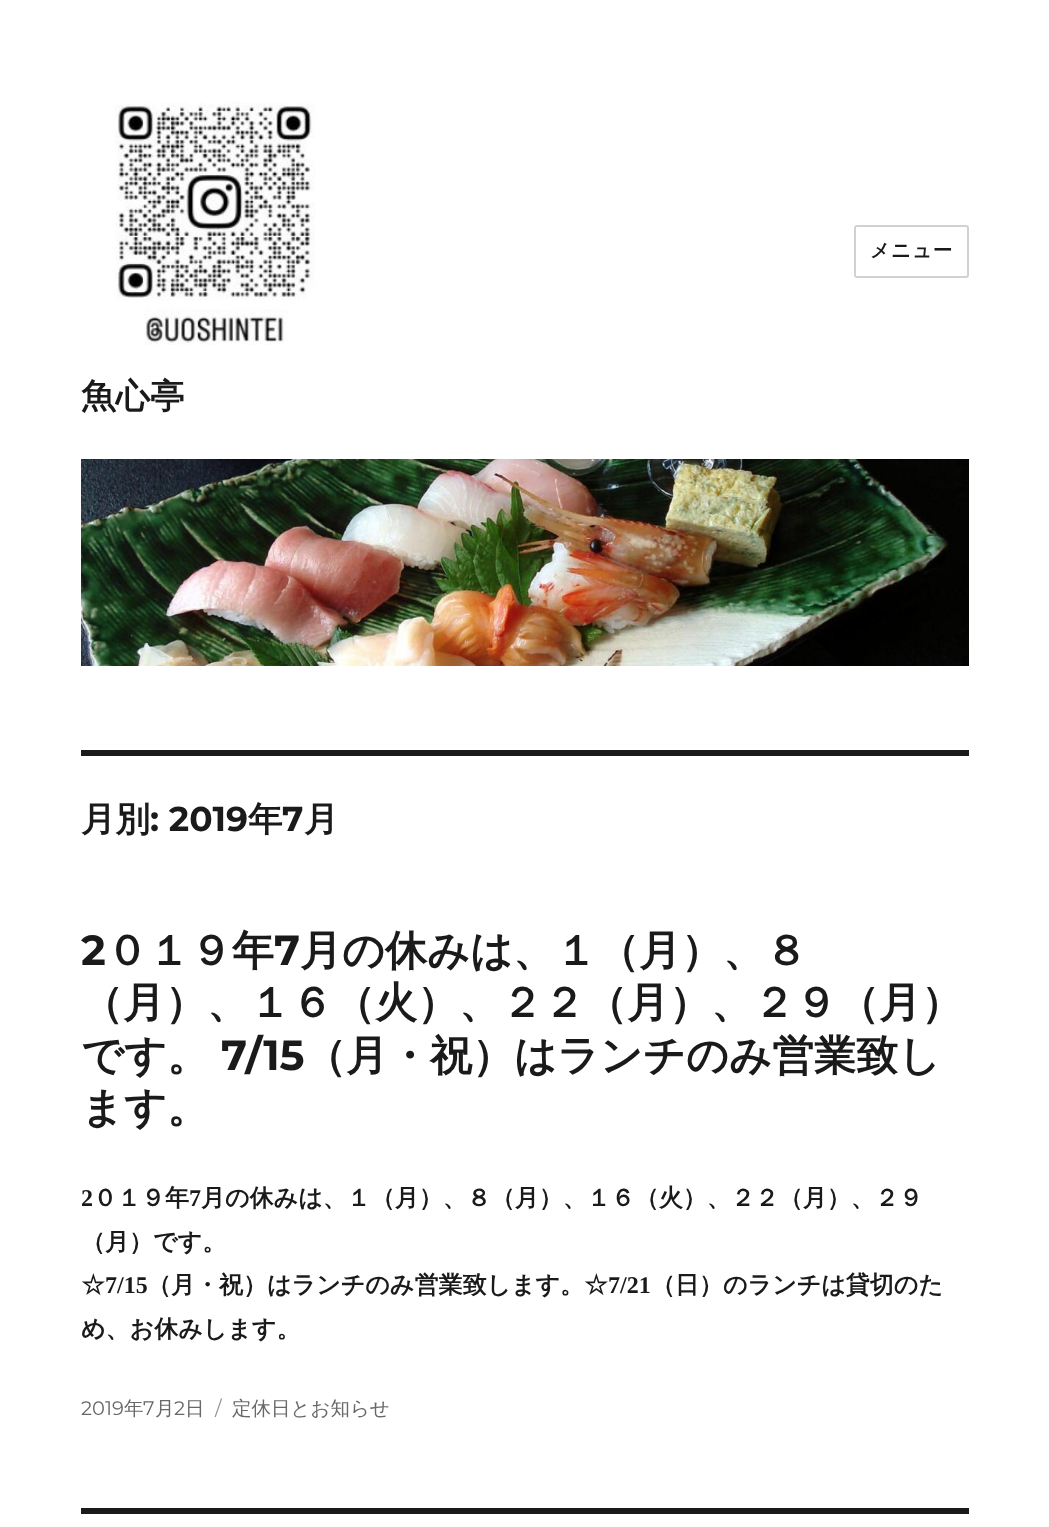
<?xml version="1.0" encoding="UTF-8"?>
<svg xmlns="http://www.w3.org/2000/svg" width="1049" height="1527">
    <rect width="100%" height="100%" fill="#FFFFFF"/>
    <rect x="855" y="226" width="113" height="51" rx="2" fill="none" stroke="#D1D1D1" stroke-width="2"/>
    <text x="870" y="257" font-family="WenQuanYi Zen Hei" font-size="19.5" font-weight="700" letter-spacing="1" fill="#1A1A1A">メニュー</text>
    <image x="115" y="102" width="200" height="243" href="img_01.png"/>
    <text x="81" y="408" font-family="WenQuanYi Zen Hei" font-size="34.5" font-weight="700" fill="#1A1A1A">魚心亭</text>
    <image x="81" y="459" width="888" height="207" href="img_02.png"/>
    <rect x="81" y="750" width="888" height="6" fill="#1A1A1A"/>
    <text x="81" y="831" font-family="WenQuanYi Zen Hei" font-size="34.5" font-weight="700" fill="#1A1A1A">月別</text>
    <text x="150" y="831" font-family="Montserrat" font-size="34.5" font-weight="700" fill="#1A1A1A">: 2019</text>
    <text x="248" y="831" font-family="WenQuanYi Zen Hei" font-size="34.5" font-weight="700" fill="#1A1A1A">年</text>
    <text x="282" y="831" font-family="Montserrat" font-size="34.5" font-weight="700" fill="#1A1A1A">7</text>
    <text x="304" y="831" font-family="WenQuanYi Zen Hei" font-size="34.5" font-weight="700" fill="#1A1A1A">月</text>
    <text x="81" y="965" font-family="Montserrat" font-size="42" font-weight="700" fill="#1A1A1A">2</text>
    <text x="106" y="965" font-family="WenQuanYi Zen Hei" font-size="42" font-weight="700" fill="#1A1A1A">０１９年</text>
    <text x="274" y="965" font-family="Montserrat" font-size="42" font-weight="700" fill="#1A1A1A">7</text>
    <text x="300" y="965" font-family="WenQuanYi Zen Hei" font-size="42" font-weight="700" fill="#1A1A1A">月の休みは、１（月）、８</text>
    <text font-family="WenQuanYi Zen Hei" font-size="42" font-weight="700" fill="#1A1A1A">
        <tspan x="81" y="1017">（月）、１６（火）、２２（月）、２９（月）</tspan>
        <tspan x="81" y="1070">です。</tspan>
    </text>
    <text x="221" y="1070" font-family="Montserrat" font-size="42" font-weight="700" fill="#1A1A1A">7/15</text>
    <text x="304" y="1070" font-family="WenQuanYi Zen Hei" font-size="42" font-weight="700" fill="#1A1A1A">（月・祝）はランチのみ営業致し</text>
    <text x="81" y="1122" font-family="WenQuanYi Zen Hei" font-size="42" font-weight="700" fill="#1A1A1A">ます。</text>
    <text x="81" y="1206" font-family="Liberation Serif" font-size="24" font-weight="700" fill="#1A1A1A">2</text>
    <text x="93" y="1206" font-family="WenQuanYi Zen Hei" font-size="24" font-weight="700" fill="#1A1A1A">０１９年</text>
    <text x="189" y="1206" font-family="Liberation Serif" font-size="24" font-weight="700" fill="#1A1A1A">7</text>
    <text x="201" y="1206" font-family="WenQuanYi Zen Hei" font-size="24" font-weight="700" fill="#1A1A1A">月の休みは、１（月）、８（月）、１６（火）、２２（月）、２９</text>
    <text font-family="WenQuanYi Zen Hei" font-size="24" font-weight="700" fill="#1A1A1A">
        <tspan x="81" y="1250">（月）です。</tspan>
        <tspan x="81" y="1293">☆</tspan>
    </text>
    <text x="105" y="1293" font-family="Liberation Serif" font-size="24" font-weight="700" fill="#1A1A1A">7/15</text>
    <text x="147" y="1293" font-family="WenQuanYi Zen Hei" font-size="24" font-weight="700" fill="#1A1A1A">（月・祝）はランチのみ営業致します。☆</text>
    <text x="608" y="1293" font-family="Liberation Serif" font-size="24" font-weight="700" fill="#1A1A1A">7/21</text>
    <text x="651" y="1293" font-family="WenQuanYi Zen Hei" font-size="24" font-weight="700" fill="#1A1A1A">（日）のランチは貸切のた</text>
    <text x="81" y="1337" font-family="WenQuanYi Zen Hei" font-size="24" font-weight="700" fill="#1A1A1A">め、お休みします。</text>
    <text x="81" y="1415" font-family="Montserrat" font-size="19.5" fill="#686868">2019</text>
    <text x="124" y="1415" font-family="WenQuanYi Zen Hei" font-size="19.5" font-weight="500" fill="#686868">年</text>
    <text x="143" y="1415" font-family="Montserrat" font-size="19.5" fill="#686868">7</text>
    <text x="155" y="1415" font-family="WenQuanYi Zen Hei" font-size="19.5" font-weight="500" fill="#686868">月</text>
    <text x="174" y="1415" font-family="Montserrat" font-size="19.5" fill="#686868">2</text>
    <text x="185" y="1415" font-family="WenQuanYi Zen Hei" font-size="19.5" font-weight="500" fill="#686868">日</text>
    <text x="215" y="1415" font-family="Montserrat" font-size="19.5" fill="#959595">/</text>
    <text x="232" y="1415" font-family="WenQuanYi Zen Hei" font-size="19.5" font-weight="500" fill="#686868">定休日とお知らせ</text>
    <rect x="81" y="1508" width="888" height="6" fill="#1A1A1A"/>
</svg>
